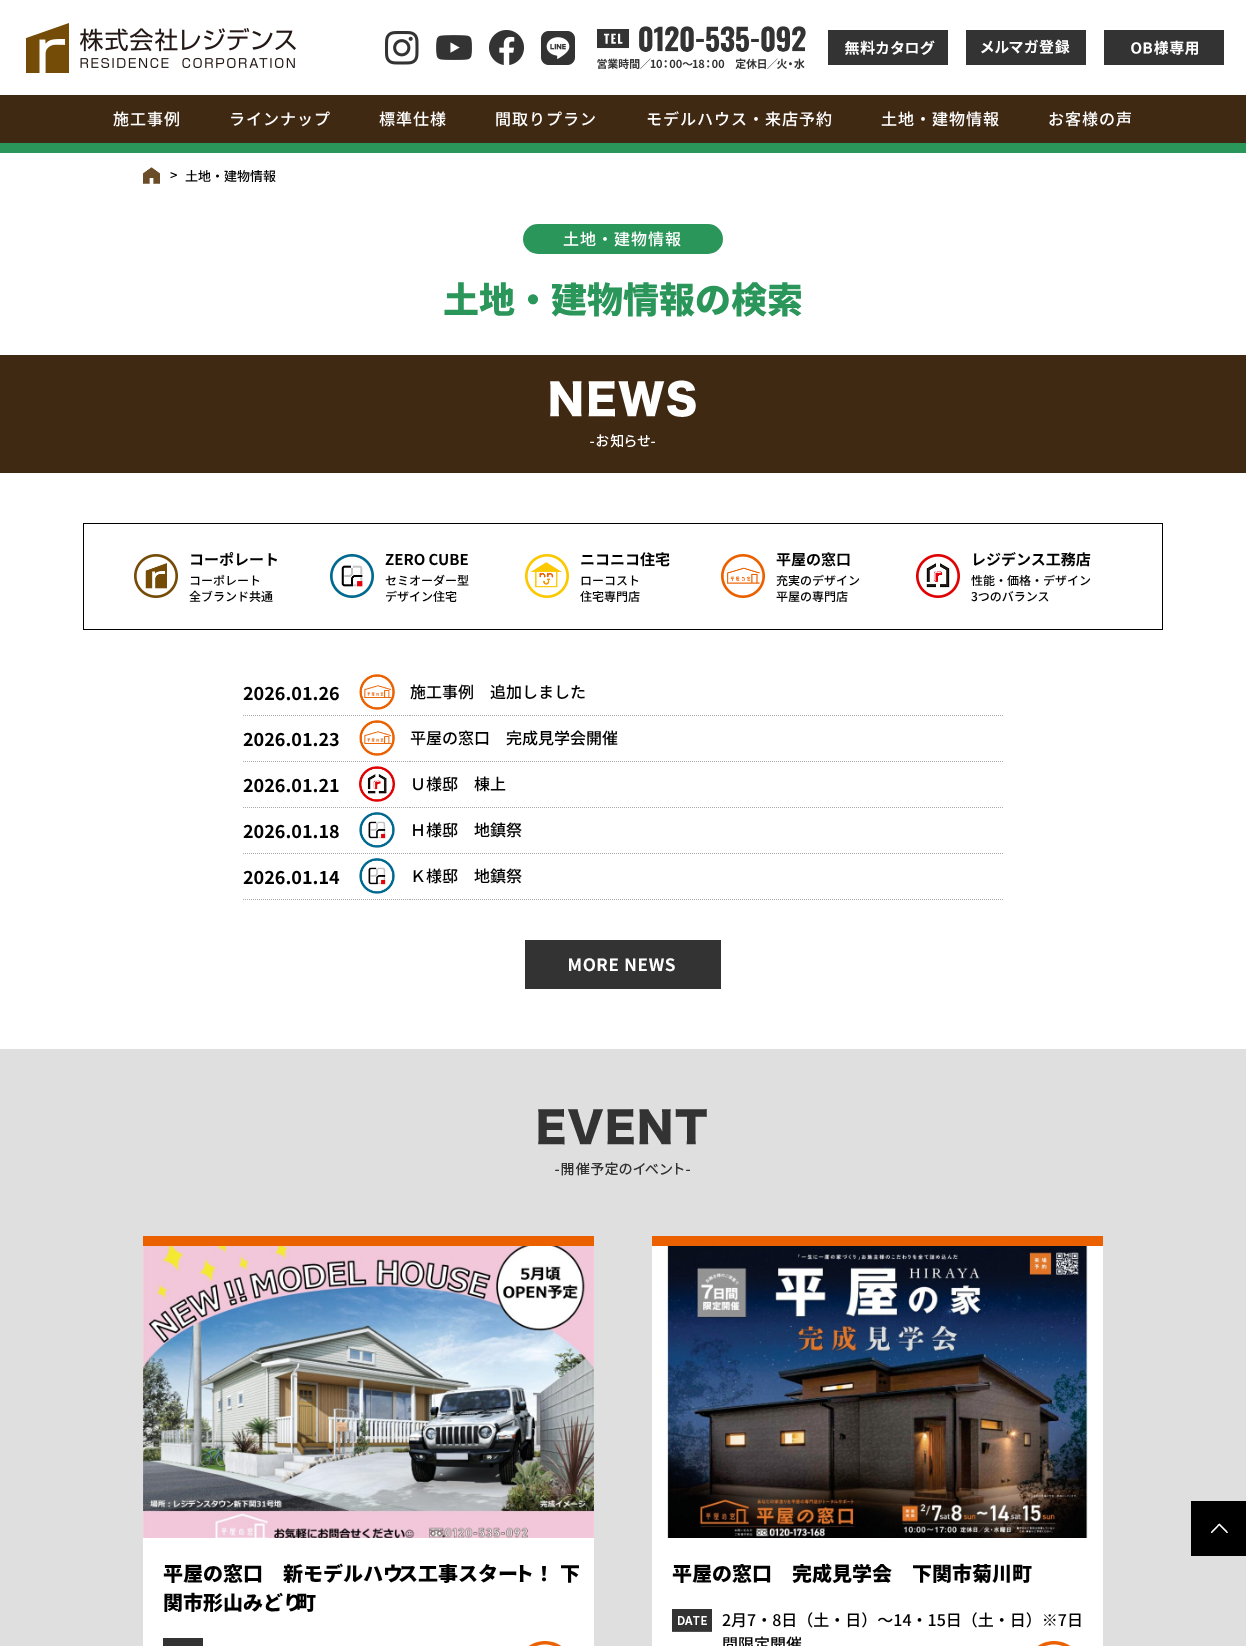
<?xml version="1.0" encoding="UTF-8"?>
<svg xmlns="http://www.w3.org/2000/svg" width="1246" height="1646">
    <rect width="100%" height="100%" fill="#FFFFFF"/>
    <image x="26" y="23" width="270" height="50" href="img_01.png"/>
    <image x="385" y="31" width="34" height="34" href="img_02.png"/>
    <image x="436" y="35" width="36" height="25" href="img_03.png"/>
    <image x="489" y="30" width="35" height="35" href="img_04.png"/>
    <image x="541" y="31" width="34" height="34" href="img_05.png"/>
    <image x="597" y="26" width="209" height="43" href="img_06.png"/>
    <image x="828" y="30" width="120" height="35" href="img_07.png"/>
    <image x="966" y="30" width="120" height="35" href="img_08.png"/>
    <image x="1104" y="30" width="120" height="35" href="img_09.png"/>
    <rect x="0" y="95" width="1246" height="48" fill="#402913"/>
    <rect x="0" y="143" width="1246" height="10" fill="#2A965A"/>
    <text x="113" y="125" font-family="Noto Sans JP" font-size="16" font-weight="500" letter-spacing="1" fill="#FFFFFF">施工事例</text>
    <text x="229" y="125" font-family="Noto Sans JP" font-size="16" font-weight="500" letter-spacing="1" fill="#FFFFFF">ラインナップ</text>
    <text x="379" y="125" font-family="Noto Sans JP" font-size="16" font-weight="500" letter-spacing="1" fill="#FFFFFF">標準仕様</text>
    <text x="495" y="125" font-family="Noto Sans JP" font-size="16" font-weight="500" letter-spacing="1" fill="#FFFFFF">間取りプラン</text>
    <text x="646" y="125" font-family="Noto Sans JP" font-size="16" font-weight="500" letter-spacing="1" fill="#FFFFFF">モデルハウス・来店予約</text>
    <text x="881" y="125" font-family="Noto Sans JP" font-size="16" font-weight="500" letter-spacing="1" fill="#FFFFFF">土地・建物情報</text>
    <text x="1048" y="125" font-family="Noto Sans JP" font-size="16" font-weight="500" letter-spacing="1" fill="#FFFFFF">お客様の声</text>
    <image x="143" y="167" width="17" height="17" href="img_10.png"/>
    <text x="170" y="180" font-family="Noto Sans JP" font-size="13" font-weight="500" fill="#000000">&gt;</text>
    <text x="185" y="181" font-family="Noto Sans JP" font-size="13" font-weight="500" fill="#000000">土地・建物情報</text>
    <rect x="523" y="224" width="200" height="30" rx="15" fill="#2A965A"/>
    <text x="563" y="245" font-family="Noto Sans JP" font-size="16" font-weight="500" letter-spacing="1" fill="#FFFFFF">土地・建物情報</text>
    <text x="443" y="313" font-family="Noto Sans JP" font-size="36" font-weight="900" fill="#2A965A">土地・建物情報の検索</text>
    <rect x="0" y="355" width="1246" height="118" fill="#402913"/>
    <image x="550" y="380" width="146" height="68" href="img_11.png"/>
    <rect x="83.5" y="523.5" width="1079" height="106" fill="none" stroke="#000000"/>
    <image x="134" y="554" width="44" height="44" href="img_12.png"/>
    <text x="189" y="565" font-family="Noto Sans JP" font-size="15" font-weight="700" fill="#000000">コーポレート</text>
    <text font-family="Noto Sans JP" font-size="12" font-weight="500" fill="#000000">
        <tspan x="189" y="585">コーポレート</tspan>
        <tspan x="189" y="601">全ブランド共通</tspan>
    </text>
    <image x="330" y="554" width="44" height="44" href="img_13.png"/>
    <text x="385" y="565" font-family="Noto Sans JP" font-size="15" font-weight="700" fill="#000000">ZERO CUBE</text>
    <text font-family="Noto Sans JP" font-size="12" font-weight="500" fill="#000000">
        <tspan x="385" y="585">セミオーダー型</tspan>
        <tspan x="385" y="601">デザイン住宅</tspan>
    </text>
    <image x="525" y="554" width="44" height="44" href="img_14.png"/>
    <text x="580" y="565" font-family="Noto Sans JP" font-size="15" font-weight="700" fill="#000000">ニコニコ住宅</text>
    <text font-family="Noto Sans JP" font-size="12" font-weight="500" fill="#000000">
        <tspan x="580" y="585">ローコスト</tspan>
        <tspan x="580" y="601">住宅専門店</tspan>
    </text>
    <image x="721" y="554" width="44" height="44" href="img_15.png"/>
    <text x="776" y="565" font-family="Noto Sans JP" font-size="15" font-weight="700" fill="#000000">平屋の窓口</text>
    <text font-family="Noto Sans JP" font-size="12" font-weight="500" fill="#000000">
        <tspan x="776" y="585">充実のデザイン</tspan>
        <tspan x="776" y="601">平屋の専門店</tspan>
    </text>
    <image x="916" y="554" width="44" height="44" href="img_16.png"/>
    <text x="971" y="565" font-family="Noto Sans JP" font-size="15" font-weight="700" fill="#000000">レジデンス工務店</text>
    <text font-family="Noto Sans JP" font-size="12" font-weight="500" fill="#000000">
        <tspan x="971" y="585">性能・価格・デザイン</tspan>
        <tspan x="971" y="601">3つのバランス</tspan>
    </text>
    <image x="359" y="674" width="36" height="36" href="img_17.png"/>
    <path d="M 243 715.5 H 410" fill="none" stroke="#AAAAAA" stroke-dasharray="1 1"/>
    <text x="243" y="700" font-family="Noto Sans JP" font-size="18" font-weight="700" fill="#000000">2026.01.26</text>
    <path d="M 410 715.5 H 1003" fill="none" stroke="#AAAAAA" stroke-dasharray="1 1"/>
    <text x="410" y="698" font-family="Noto Sans JP" font-size="16" font-weight="500" fill="#000000">施工事例　追加しました</text>
    <image x="359" y="720" width="36" height="36" href="img_17.png"/>
    <path d="M 243 761.5 H 410" fill="none" stroke="#AAAAAA" stroke-dasharray="1 1"/>
    <text x="243" y="746" font-family="Noto Sans JP" font-size="18" font-weight="700" fill="#000000">2026.01.23</text>
    <path d="M 410 761.5 H 1003" fill="none" stroke="#AAAAAA" stroke-dasharray="1 1"/>
    <text x="410" y="744" font-family="Noto Sans JP" font-size="16" font-weight="500" fill="#000000">平屋の窓口　完成見学会開催</text>
    <image x="359" y="766" width="36" height="36" href="img_18.png"/>
    <path d="M 243 807.5 H 410" fill="none" stroke="#AAAAAA" stroke-dasharray="1 1"/>
    <text x="243" y="792" font-family="Noto Sans JP" font-size="18" font-weight="700" fill="#000000">2026.01.21</text>
    <path d="M 410 807.5 H 1003" fill="none" stroke="#AAAAAA" stroke-dasharray="1 1"/>
    <text x="410" y="790" font-family="Noto Sans JP" font-size="16" font-weight="500" fill="#000000">Ｕ様邸　棟上</text>
    <image x="359" y="812" width="36" height="36" href="img_19.png"/>
    <path d="M 243 853.5 H 410" fill="none" stroke="#AAAAAA" stroke-dasharray="1 1"/>
    <text x="243" y="838" font-family="Noto Sans JP" font-size="18" font-weight="700" fill="#000000">2026.01.18</text>
    <path d="M 410 853.5 H 1003" fill="none" stroke="#AAAAAA" stroke-dasharray="1 1"/>
    <text x="410" y="836" font-family="Noto Sans JP" font-size="16" font-weight="500" fill="#000000">Ｈ様邸　地鎮祭</text>
    <image x="359" y="858" width="36" height="36" href="img_19.png"/>
    <path d="M 243 899.5 H 410" fill="none" stroke="#AAAAAA" stroke-dasharray="1 1"/>
    <text x="243" y="884" font-family="Noto Sans JP" font-size="18" font-weight="700" fill="#000000">2026.01.14</text>
    <path d="M 410 899.5 H 1003" fill="none" stroke="#AAAAAA" stroke-dasharray="1 1"/>
    <text x="410" y="882" font-family="Noto Sans JP" font-size="16" font-weight="500" fill="#000000">Ｋ様邸　地鎮祭</text>
    <image x="525" y="940" width="196" height="49" href="img_20.png"/>
    <rect x="0" y="1049" width="1246" height="597" fill="#DFDFDF"/>
    <image x="1191" y="1501" width="55" height="55" href="img_21.png"/>
    <image x="538" y="1109" width="169" height="67" href="img_22.png"/>
    <rect x="143" y="1538" width="451" height="108" fill="#FFFFFF"/>
    <image x="528" y="1641" width="34" height="5" href="img_23.png"/>
    <rect x="143" y="1236" width="451" height="10" fill="#EB6100"/>
    <image x="143" y="1246" width="451" height="292" href="img_24.png"/>
    <text x="163" y="1581" font-family="Noto Sans JP" font-size="20" font-weight="900" fill="#000000">平屋の窓口　新モデルハウ</text>
    <text x="398" y="1581" font-family="Noto Sans JP" font-size="20" font-weight="900" fill="#000000">ス工事スター</text>
    <text x="514" y="1581" font-family="Noto Sans JP" font-size="20" font-weight="900" fill="#000000">ト！</text>
    <text x="540" y="1581" font-family="Noto Sans JP" font-size="20" font-weight="900" fill="#000000">　下</text>
    <text x="163" y="1610" font-family="Noto Sans JP" font-size="20" font-weight="900" fill="#000000">関市形山みどり</text>
    <text x="296" y="1610" font-family="Noto Sans JP" font-size="20" font-weight="900" fill="#000000">町</text>
    <rect x="163" y="1638" width="40" height="8" fill="#333333"/>
    <rect x="652" y="1246" width="451" height="400" fill="#FFFFFF"/>
    <image x="1037" y="1641" width="34" height="5" href="img_23.png"/>
    <rect x="652" y="1236" width="451" height="10" fill="#EB6100"/>
    <image x="666" y="1246" width="423" height="292" href="img_25.png"/>
    <text x="672" y="1581" font-family="Noto Sans JP" font-size="20" font-weight="900" fill="#000000">平屋の窓口　完成見学会　下関市菊川町</text>
    <image x="672" y="1609" width="40" height="23" href="img_26.png"/>
    <text font-family="Noto Sans JP" font-size="16" font-weight="500" fill="#000000">
        <tspan x="722" y="1626">2月7・8日（土・日）～14・15日（土・日）※7日</tspan>
        <tspan x="722" y="1650">間限定開催</tspan>
    </text>
</svg>
